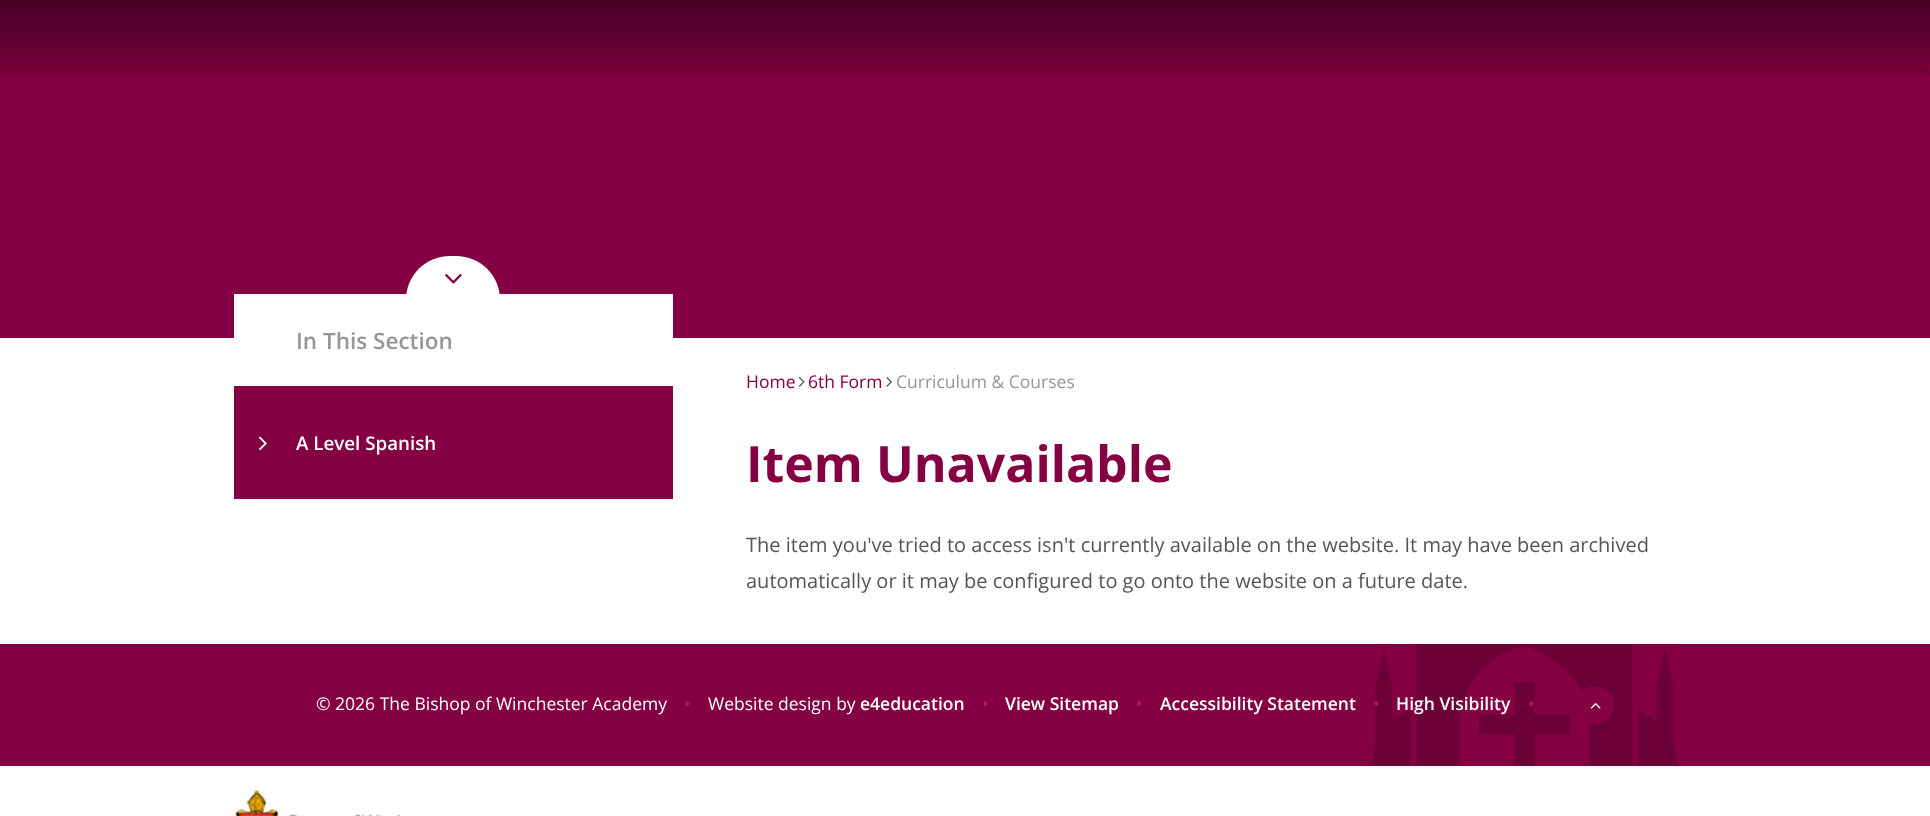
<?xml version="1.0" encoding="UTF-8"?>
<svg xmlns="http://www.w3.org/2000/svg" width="1930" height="816">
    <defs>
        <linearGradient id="g1" gradientUnits="userSpaceOnUse" x1="965" y1="-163" x2="965" y2="88"><stop offset="0" stop-color="#4F0028"/><stop offset="1" stop-color="#840042"/></linearGradient>
        <linearGradient id="g2" gradientUnits="userSpaceOnUse" x1="965" y1="-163" x2="965" y2="88"><stop offset="0" stop-color="#000000" stop-opacity="0.4"/><stop offset="1" stop-color="#000000" stop-opacity="0"/></linearGradient>
    </defs>
    <rect width="100%" height="100%" fill="#FFFFFF"/>
    <rect x="0" y="88" width="1930" height="250" fill="#840042"/>
    <rect x="0" y="0" width="1930" height="88" fill="url(#g1)"/>
    <rect x="0" y="0" width="1930" height="74" fill="url(#g2)"/>
    <rect x="0" y="0" width="1930" height="74" fill="url(#g2)"/>
    <rect x="0" y="0" width="1930" height="74" fill="url(#g2)"/>
    <rect x="234" y="294" width="439" height="44" fill="#FFFFFF"/>
    <path d="M 450 256 H 456 C 480.5 256 500 275.5 500 300 H 406 C 406 275.5 425.5 256 450 256 Z" fill="#FFFFFF"/>
    <image x="445" y="274" width="17" height="10" href="img_01.png"/>
    <text x="296" y="349" font-family="Open Sans" font-size="22.5" font-weight="600" fill="#969696">In This Section</text>
    <rect x="234" y="386" width="439" height="113" fill="#840042"/>
    <image x="259" y="436" width="8" height="15" href="img_02.png"/>
    <text x="296" y="450" font-family="Open Sans" font-size="18.75" font-weight="600" fill="#FFFFFF">A Level Spanish</text>
    <text x="746" y="388" font-family="Open Sans" font-size="17.5" fill="#840042">Home</text>
    <image x="798" y="377" width="7" height="10" href="img_03.png"/>
    <text x="808" y="388" font-family="Open Sans" font-size="17.5" fill="#840042">6th Form</text>
    <image x="886" y="377" width="6" height="10" href="img_04.png"/>
    <text x="896" y="388" font-family="Open Sans" font-size="17.5" fill="#969696">Curriculum &amp; Courses</text>
    <text x="746" y="482" font-family="Open Sans" font-size="50" font-weight="700" fill="#840042">Item Unavailable</text>
    <text font-family="Open Sans" font-size="20" fill="#555555">
        <tspan x="746" y="552">The item you've tried to access isn't currently available on the website. It may have been archived</tspan>
        <tspan x="746" y="588">automatically or it may be configured to go onto the website on a future date.</tspan>
    </text>
    <rect x="0" y="644" width="1930" height="122" fill="#840042"/>
    <image x="1371" y="644" width="307" height="122" href="img_05.png"/>
    <text x="316" y="710" font-family="Open Sans" font-size="17.5" fill="#FFFFFF">© 2026 The Bishop of Winchester Academy</text>
    <text x="684" y="710" font-family="Open Sans" font-size="17.5" fill="#C0146A">•</text>
    <text x="708" y="710" font-family="Open Sans" font-size="17.5" fill="#FFFFFF">Website design by</text>
    <text x="860" y="710" font-family="Open Sans" font-size="17.5" font-weight="600" fill="#FFFFFF">e4education</text>
    <text x="982" y="710" font-family="Open Sans" font-size="17.5" fill="#C0146A">•</text>
    <text x="1005" y="710" font-family="Open Sans" font-size="17.5" font-weight="600" fill="#FFFFFF">View Sitemap</text>
    <text x="1136" y="710" font-family="Open Sans" font-size="17.5" fill="#C0146A">•</text>
    <text x="1160" y="710" font-family="Open Sans" font-size="17.5" font-weight="600" fill="#FFFFFF">Accessibility Statement</text>
    <text x="1373" y="710" font-family="Open Sans" font-size="17.5" fill="#C0146A">•</text>
    <text x="1396" y="710" font-family="Open Sans" font-size="17.5" font-weight="600" fill="#FFFFFF">High Visibility</text>
    <text x="1528" y="710" font-family="Open Sans" font-size="17.5" fill="#C0146A">•</text>
    <circle cx="1595" cy="705" r="19" fill="#840042"/>
    <image x="1590" y="703" width="11" height="6" href="img_06.png"/>
    <image x="235" y="790" width="166" height="26" href="img_07.png"/>
</svg>
